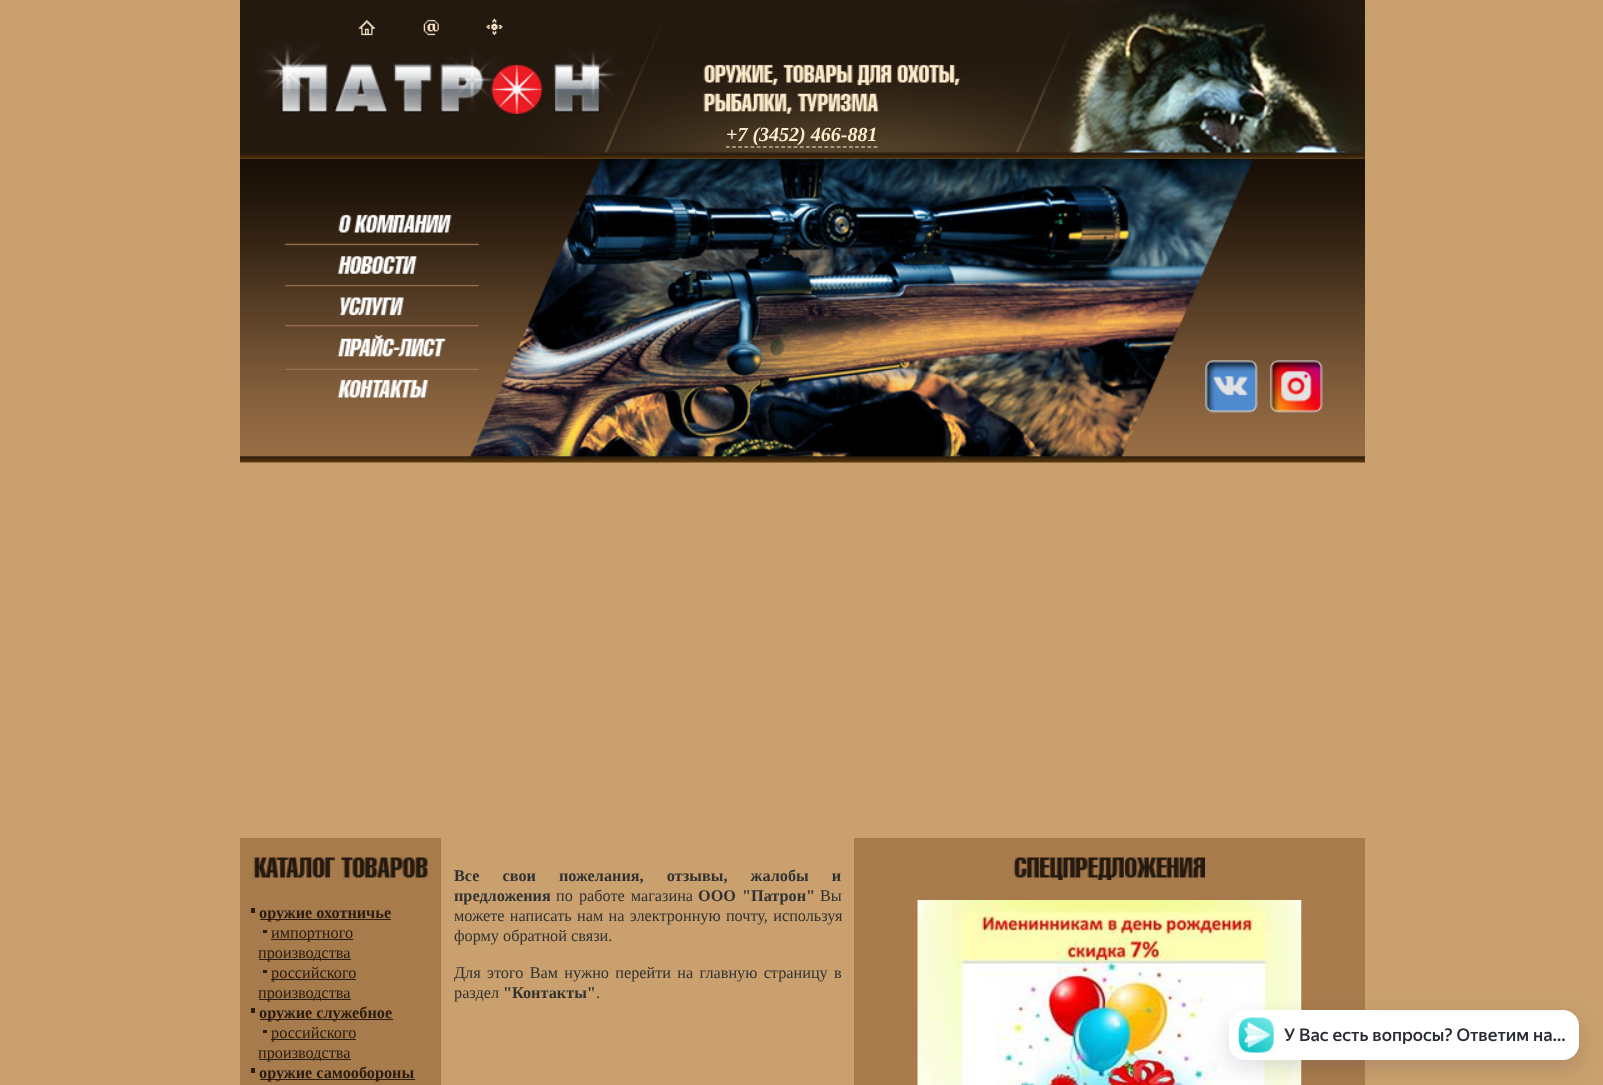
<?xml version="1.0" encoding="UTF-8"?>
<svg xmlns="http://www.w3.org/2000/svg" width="1603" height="1085">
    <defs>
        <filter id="blur1" x="-50%" y="-200%" width="200%" height="500%"><feGaussianBlur stdDeviation="11"/></filter>
    </defs>
    <rect width="100%" height="100%" fill="#C9A06E"/>
    <image x="240" y="0" width="1125" height="159" href="img_01.png"/>
    <text x="726" y="141" font-family="Liberation Serif" font-size="20" font-weight="700" font-style="italic" fill="#FFECCD">+7 (3452) 466-881</text>
    <path d="M 726 147 H 877.5" fill="none" stroke="#FFECCD" stroke-width="1.2" stroke-dasharray="3.75 2.4"/>
    <image x="240" y="158" width="1125" height="305" href="img_02.png"/>
    <image x="1205" y="360" width="53" height="53" href="img_03.png"/>
    <image x="1270" y="360" width="53" height="53" href="img_04.png"/>
    <rect x="240" y="838" width="201" height="247" fill="#A87B4D"/>
    <image x="253" y="857" width="175" height="21" href="img_05.png"/>
    <rect x="251" y="908" width="4" height="5" fill="#2A1C0F"/>
    <rect x="260" y="919" width="131" height="1" fill="#2A1C0F"/>
    <text x="259" y="918" font-family="Liberation Serif" font-size="16.25" font-weight="700" fill="#2A1C0F">оружие охотничье</text>
    <rect x="263" y="930" width="4" height="3" fill="#2A1C0F"/>
    <rect x="271" y="939" width="82" height="1" fill="#2A1C0F"/>
    <text x="271" y="938" font-family="Liberation Serif" font-size="16.25" fill="#2A1C0F">импортного</text>
    <rect x="259" y="959" width="92" height="1" fill="#2A1C0F"/>
    <text x="258" y="958" font-family="Liberation Serif" font-size="16.25" fill="#2A1C0F">производства</text>
    <rect x="263" y="970" width="4" height="3" fill="#2A1C0F"/>
    <rect x="271" y="979" width="85" height="1" fill="#2A1C0F"/>
    <text x="271" y="978" font-family="Liberation Serif" font-size="16.25" fill="#2A1C0F">российского</text>
    <rect x="259" y="999" width="92" height="1" fill="#2A1C0F"/>
    <text x="258" y="998" font-family="Liberation Serif" font-size="16.25" fill="#2A1C0F">производства</text>
    <rect x="251" y="1008" width="4" height="5" fill="#2A1C0F"/>
    <rect x="260" y="1019" width="133" height="1" fill="#2A1C0F"/>
    <text x="259" y="1018" font-family="Liberation Serif" font-size="16.25" font-weight="700" fill="#2A1C0F">оружие служебное</text>
    <rect x="263" y="1030" width="4" height="3" fill="#2A1C0F"/>
    <rect x="271" y="1039" width="85" height="1" fill="#2A1C0F"/>
    <text x="271" y="1038" font-family="Liberation Serif" font-size="16.25" fill="#2A1C0F">российского</text>
    <rect x="259" y="1059" width="92" height="1" fill="#2A1C0F"/>
    <text x="258" y="1058" font-family="Liberation Serif" font-size="16.25" fill="#2A1C0F">производства</text>
    <rect x="251" y="1068" width="4" height="5" fill="#2A1C0F"/>
    <rect x="260" y="1079" width="155" height="1" fill="#2A1C0F"/>
    <text x="259" y="1078" font-family="Liberation Serif" font-size="16.25" font-weight="700" fill="#2A1C0F">оружие самообороны</text>
    <text font-family="Liberation Serif" font-size="16.25" font-weight="700" fill="#323232">
        <tspan x="454" y="881" word-spacing="19">Все свои пожелания, отзывы, жалобы и</tspan>
        <tspan x="454" y="901">предложения</tspan>
    </text>
    <text x="556" y="901" word-spacing="2" font-family="Liberation Serif" font-size="16.25" fill="#323232">по работе магазина</text>
    <text x="698" y="901" word-spacing="2" font-family="Liberation Serif" font-size="16.25" font-weight="700" fill="#323232">ООО "Патрон"</text>
    <text x="820" y="901" font-family="Liberation Serif" font-size="16.25" fill="#323232">Вы</text>
    <text font-family="Liberation Serif" font-size="16.25" fill="#323232">
        <tspan x="454" y="921" word-spacing="1.25">можете написать нам на электронную почту, используя</tspan>
        <tspan x="454" y="941">форму обратной связи.</tspan>
    </text>
    <text font-family="Liberation Serif" font-size="16.25" fill="#323232">
        <tspan x="454" y="978" word-spacing="2.25">Для этого Вам нужно перейти на главную страницу в</tspan>
        <tspan x="454" y="998">раздел</tspan>
    </text>
    <text x="503" y="998" font-family="Liberation Serif" font-size="16.25" font-weight="700" fill="#323232">"Контакты"</text>
    <text x="596" y="998" font-family="Liberation Serif" font-size="16.25" fill="#323232">.</text>
    <rect x="854" y="838" width="511" height="247" fill="#A87B4D"/>
    <image x="1013" y="857" width="192" height="23" href="img_06.png"/>
    <image x="917" y="900" width="385" height="185" href="img_07.png"/>
    <rect x="1229" y="1018" width="350" height="50" rx="16" fill="#0E152F" fill-opacity="0.13" filter="url(#blur1)"/>
    <rect x="1229" y="1010" width="350" height="50" rx="16" fill="#FFFFFF"/>
    <image x="1238" y="1017" width="36" height="36" href="img_08.png"/>
    <text x="1284" y="1041" font-family="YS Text" font-size="17.5" font-weight="500" fill="#292C33">У Вас есть вопросы? Ответим на…</text>
</svg>
